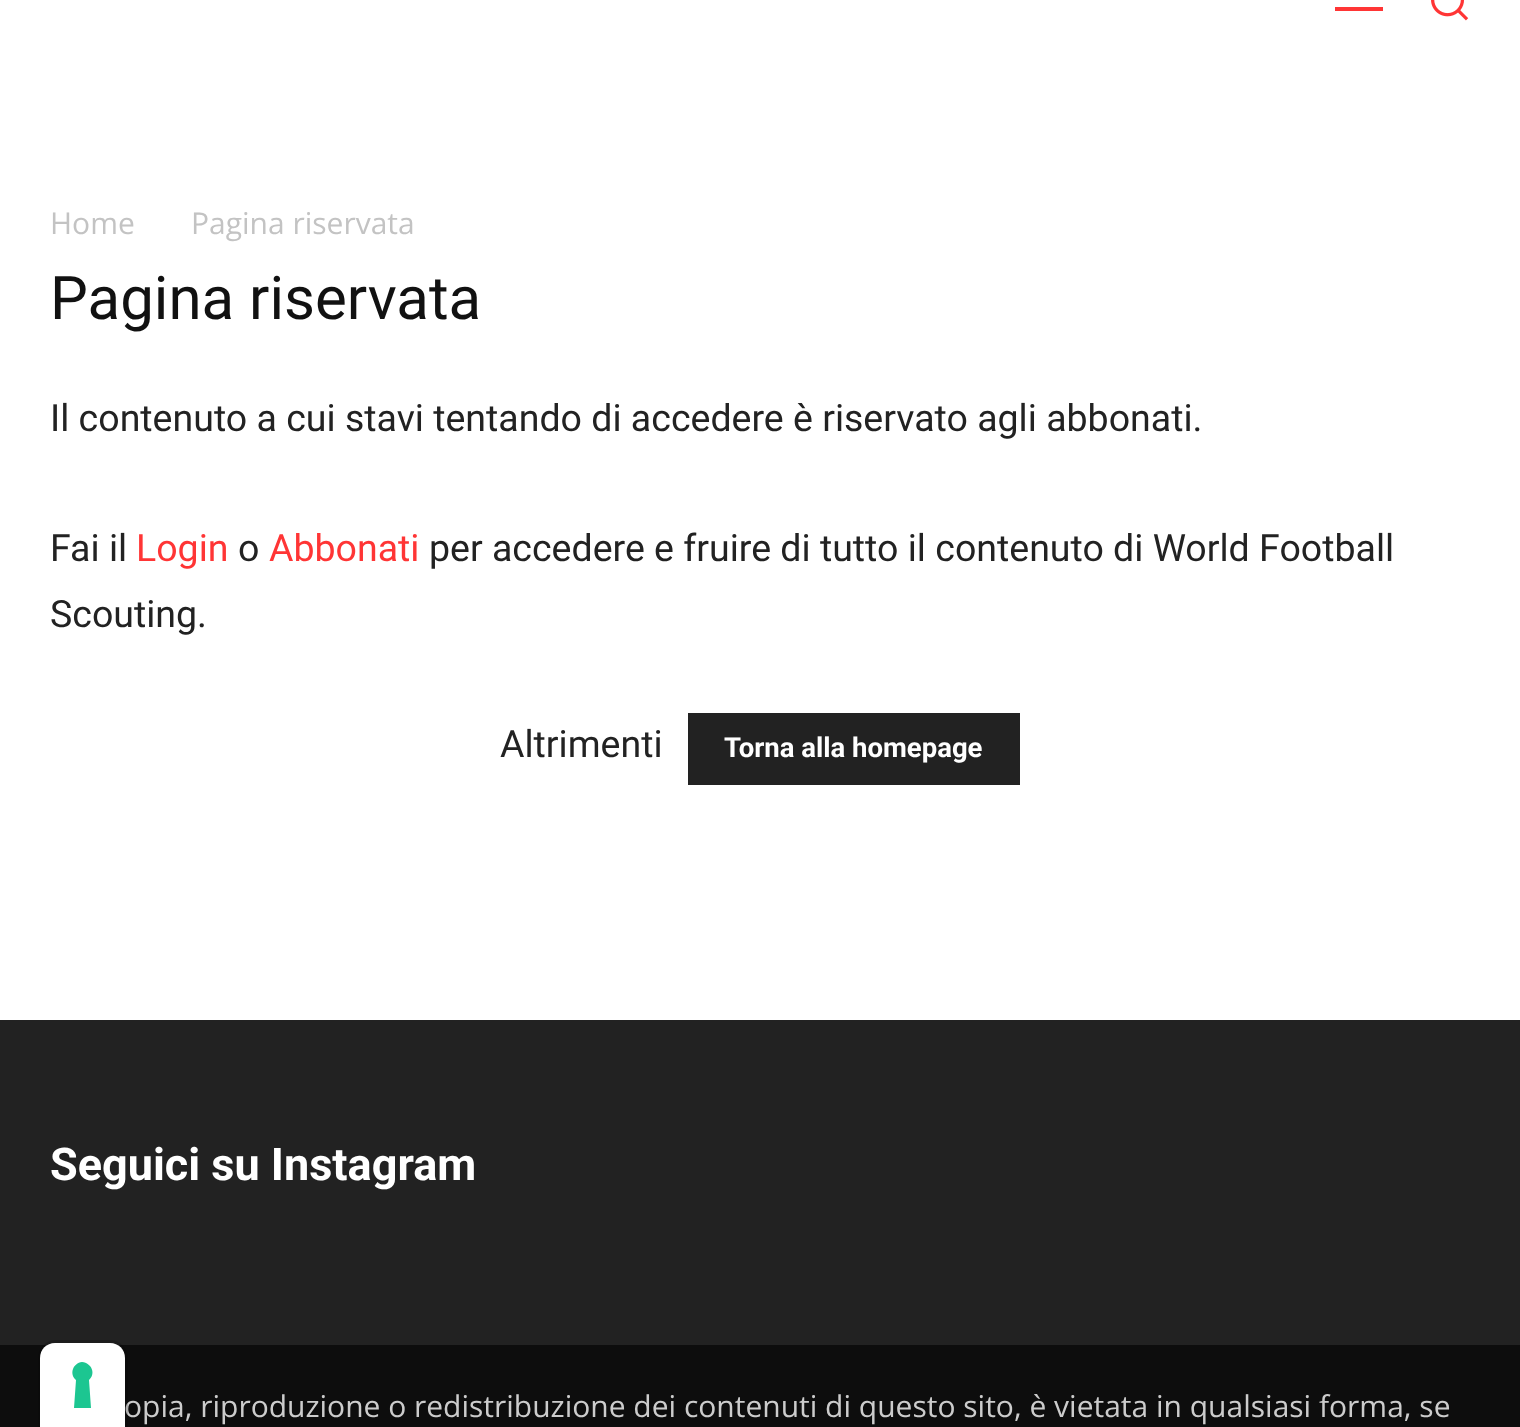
<?xml version="1.0" encoding="UTF-8"?>
<svg xmlns="http://www.w3.org/2000/svg" width="1520" height="1427">
    <rect width="100%" height="100%" fill="#FFFFFF"/>
    <path d="M 1335 -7 H 1383 V -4 H 1335 Z M 1335 -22 H 1383 V -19 H 1335 Z M 1335 7 H 1383 V 11 H 1335 Z" fill="#FF3535"/>
    <image x="1431" y="0" width="38" height="21" href="img_01.png"/>
    <text x="50" y="234" font-family="Open Sans" font-size="30" fill="#C3C3C3">Home</text>
    <text x="191" y="234" font-family="Open Sans" font-size="30" fill="#C3C3C3">Pagina riservata</text>
    <text x="50" y="319" font-family="Roboto" font-size="60" fill="#111111">Pagina riservata</text>
    <text x="50" y="431" font-family="Roboto" font-size="37.5" fill="#222222">Il contenuto a cui stavi tentando di accedere è riservato agli abbonati.</text>
    <text x="50" y="561" font-family="Roboto" font-size="37.5" fill="#222222">Fai il</text>
    <text x="136" y="561" font-family="Roboto" font-size="37.5" fill="#FF3535">Login</text>
    <text x="238" y="561" font-family="Roboto" font-size="37.5" fill="#222222">o</text>
    <text x="269" y="561" font-family="Roboto" font-size="37.5" fill="#FF3535">Abbonati</text>
    <text x="429" y="561" font-family="Roboto" font-size="37.5" fill="#222222">per accedere e fruire di tutto il contenuto di World Football</text>
    <text x="50" y="627" font-family="Roboto" font-size="37.5" fill="#222222">Scouting.</text>
    <text x="500" y="757" font-family="Roboto" font-size="37.5" fill="#222222">Altrimenti</text>
    <rect x="688" y="713" width="332" height="72" fill="#222222"/>
    <text x="724" y="757" font-family="Roboto" font-size="27.5" font-weight="700" fill="#FFFFFF">Torna alla homepage</text>
    <rect x="0" y="1020" width="1520" height="325" fill="#222222"/>
    <text x="50" y="1180" font-family="Roboto" font-size="45" font-weight="700" fill="#FFFFFF">Seguici su Instagram</text>
    <rect x="0" y="1345" width="1520" height="82" fill="#0D0D0D"/>
    <text x="124" y="1417" font-family="Open Sans" font-size="30" fill="#CCCCCC">opia, riproduzione o redistribuzione dei contenuti di questo sito, è vietata in qualsiasi forma, se</text>
    <path d="M 56 1341.5 H 110 C 119 1341.5 126.5 1349 126.5 1358 V 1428.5 H 39.5 V 1358 C 39.5 1349 47 1341.5 56 1341.5 Z" fill="none" stroke="#000000" stroke-opacity="0.15" stroke-width="3"/>
    <path d="M 55 1343 H 110 C 118.5 1343 125 1349.5 125 1358 V 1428 H 40 V 1358 C 40 1349.5 46.5 1343 55 1343 Z" fill="#FFFFFF"/>
    <path d="M 82 1362 C 92 1363 96 1374 89 1380 L 91 1408 H 74 L 76 1380 C 69 1374 73 1363 82 1362 Z" fill="#1CC691" fill-rule="evenodd"/>
</svg>
